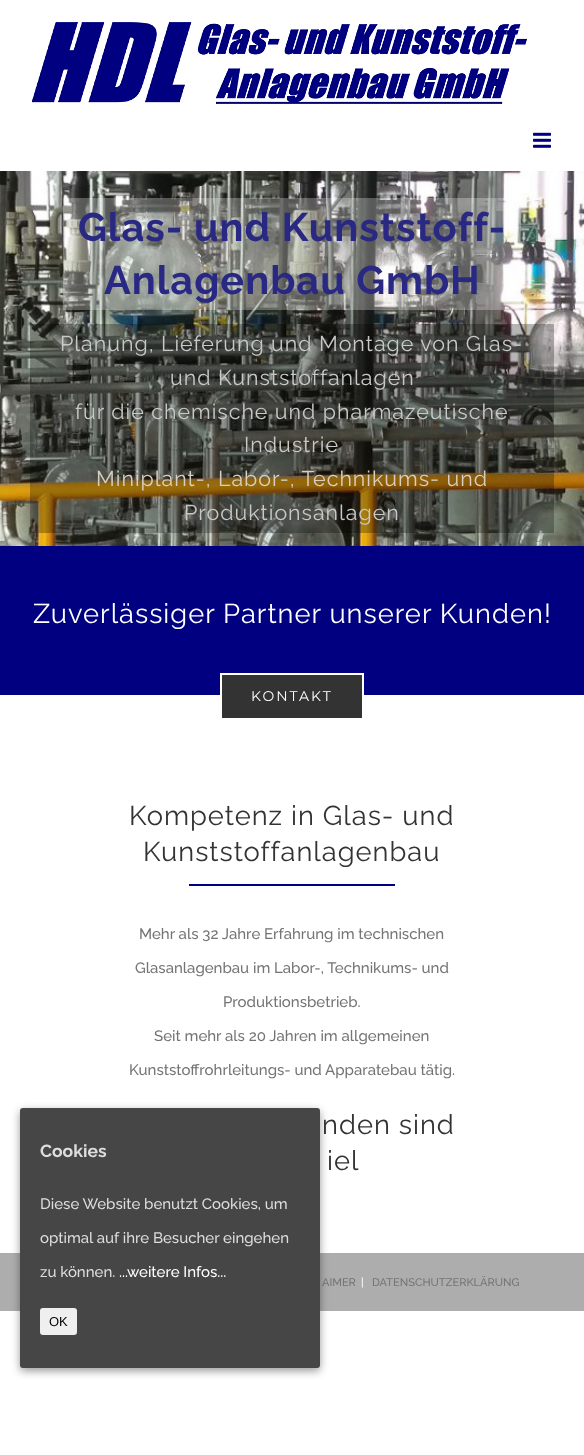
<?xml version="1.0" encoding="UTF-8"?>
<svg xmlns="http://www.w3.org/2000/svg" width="584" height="1455">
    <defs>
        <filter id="blur1" x="-50%" y="-200%" width="200%" height="500%"><feGaussianBlur stdDeviation="4.5"/></filter>
    </defs>
    <rect width="100%" height="100%" fill="#FFFFFF"/>
    <image x="31" y="22" width="496" height="82" href="img_01.png"/>
    <image x="533" y="132" width="18" height="16" href="img_02.png"/>
    <image x="0" y="171" width="584" height="375" href="img_03.png"/>
    <rect x="63" y="198" width="458" height="112" fill="#FFFFFF" fill-opacity="0.28"/>
    <text x="78" y="241" font-family="Raleway" font-size="39.75" font-weight="700" letter-spacing="1" fill="#292983">Glas- und Kunststoff-</text>
    <text x="104" y="294" font-family="Raleway" font-size="39.75" font-weight="700" letter-spacing="1" fill="#292983">Anlagenbau GmbH</text>
    <rect x="30" y="324" width="524" height="209" fill="#000000" fill-opacity="0.28"/>
    <text x="60" y="351" font-family="Raleway" font-size="21.4" letter-spacing="1" fill="#C7C8C7">Planung, Lieferung und Montage von Glas-</text>
    <text x="170" y="385" font-family="Raleway" font-size="21.4" letter-spacing="1" fill="#C7C8C7">und Kunststoffanlagen</text>
    <text x="75" y="419" font-family="Raleway" font-size="21.4" letter-spacing="1" fill="#C7C8C7">für die chemische und pharmazeutische</text>
    <text x="244" y="452" font-family="Raleway" font-size="21.4" letter-spacing="1" fill="#C7C8C7">Industrie</text>
    <text x="96" y="486" font-family="Raleway" font-size="21.4" letter-spacing="1" fill="#D8CFBE">Miniplant-, Labor-, Technikums- und</text>
    <text x="184" y="520" font-family="Raleway" font-size="21.4" letter-spacing="1" fill="#C7C8C7">Produktionsanlagen</text>
    <rect x="0" y="546" width="584" height="149" fill="#000080"/>
    <text x="33" y="623" font-family="Raleway" font-size="27.3" letter-spacing="1" fill="#FFFFFF">Zuverlässiger Partner unserer Kunden!</text>
    <rect x="221" y="674" width="142" height="45" fill="#333333" stroke="#FFFFFF" stroke-width="2"/>
    <text x="251" y="701" font-family="Montserrat" font-size="14" letter-spacing="2" fill="#FFFFFF">KONTAKT</text>
    <text x="129" y="825" font-family="Raleway" font-size="27.3" letter-spacing="1" fill="#333333">Kompetenz in Glas- und</text>
    <text x="143" y="861" font-family="Raleway" font-size="27.3" letter-spacing="1" fill="#333333">Kunststoffanlagenbau</text>
    <rect x="189" y="884" width="206" height="2" fill="#000080"/>
    <text x="139" y="939" font-family="Raleway" font-size="15" font-weight="500" fill="#747474">Mehr als 32 Jahre Erfahrung im technischen</text>
    <text x="135" y="973" font-family="Raleway" font-size="15" font-weight="500" fill="#747474">Glasanlagenbau im Labor-, Technikums- und</text>
    <text x="223" y="1007" font-family="Raleway" font-size="15" font-weight="500" fill="#747474">Produktionsbetrieb.</text>
    <text x="154" y="1041" font-family="Raleway" font-size="15" font-weight="500" fill="#747474">Seit mehr als 20 Jahren im allgemeinen</text>
    <text x="129" y="1075" font-family="Raleway" font-size="15" font-weight="500" fill="#747474">Kunststoffrohrleitungs- und Apparatebau tätig.</text>
    <text x="322" y="1134" font-family="Raleway" font-size="27.3" letter-spacing="1" fill="#333333">nden sind</text>
    <text x="327" y="1170" font-family="Raleway" font-size="27.3" letter-spacing="1" fill="#333333">iel</text>
    <rect x="0" y="1253" width="584" height="58" fill="#ADADAD"/>
    <text x="322" y="1286" font-family="Raleway" font-size="11" font-weight="500" fill="#747474">AIMER</text>
    <text x="361" y="1286" font-family="Raleway" font-size="11" font-weight="500" fill="#FFFFFF">|</text>
    <text x="372" y="1286" font-family="Raleway" font-size="11" font-weight="500" fill="#747474">DATENSCHUTZERKLÄRUNG</text>
    <rect x="20" y="1111" width="300" height="260" rx="3" fill="#000000" fill-opacity="0.4" filter="url(#blur1)"/>
    <rect x="20" y="1108" width="300" height="260" rx="3" fill="#464646"/>
    <text x="40" y="1157" font-family="Raleway" font-size="17.5" font-weight="700" fill="#DDDDDD">Cookies</text>
    <text x="40" y="1209" font-family="Raleway" font-size="15" font-weight="500" fill="#DDDDDD">Diese Website benutzt Cookies, um</text>
    <text x="40" y="1243" font-family="Raleway" font-size="15" font-weight="500" fill="#DDDDDD">optimal auf ihre Besucher eingehen</text>
    <text x="40" y="1277" font-family="Raleway" font-size="15" font-weight="500" fill="#DDDDDD">zu können.</text>
    <text x="119" y="1277" font-family="Raleway" font-size="15" font-weight="500" fill="#FFFFFF">...weitere Infos...</text>
    <rect x="40" y="1308" width="37" height="27" rx="3" fill="#EFEFEF"/>
    <text x="49" y="1326" font-family="Liberation Sans" font-size="13" fill="#000000">OK</text>
</svg>
